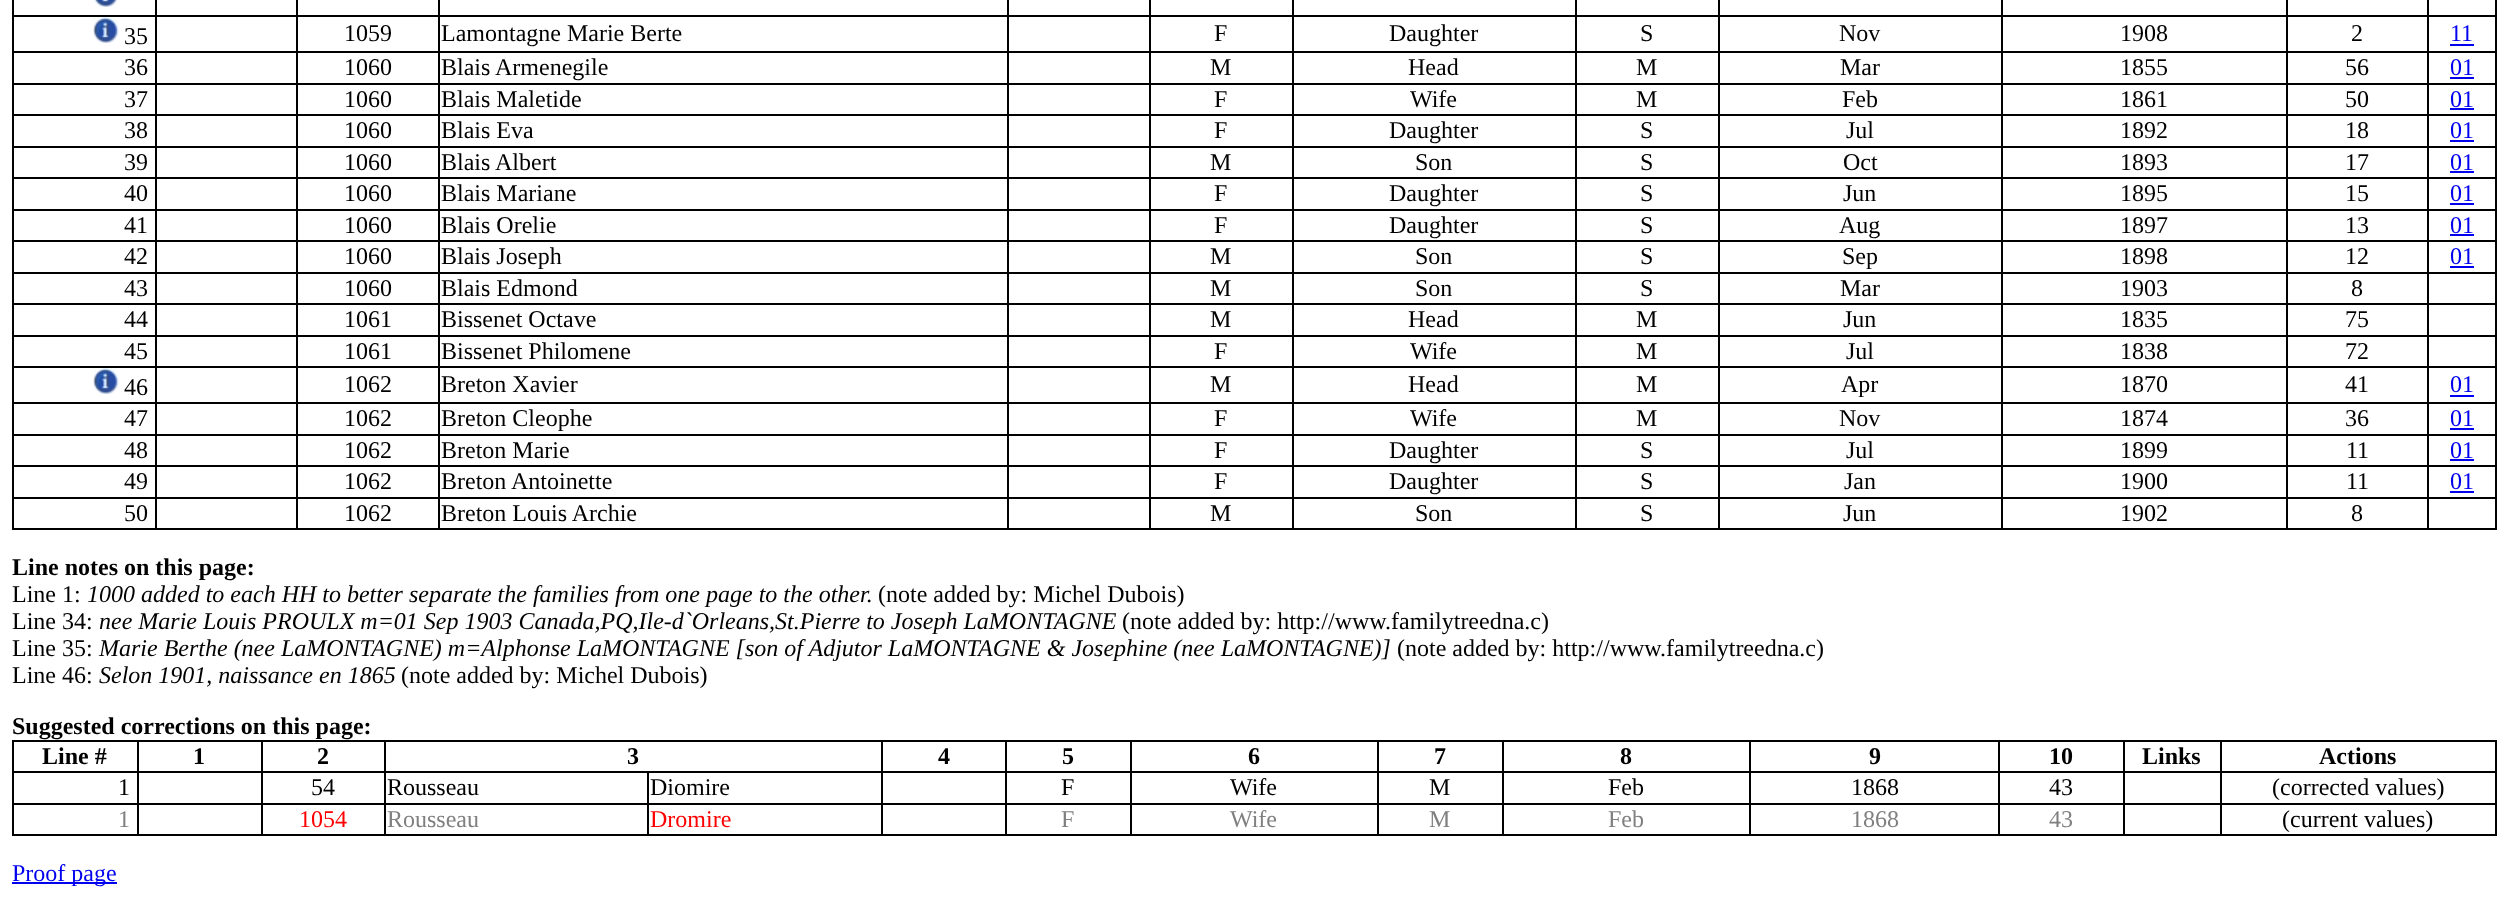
<?xml version="1.0" encoding="UTF-8"?>
<svg xmlns="http://www.w3.org/2000/svg" width="2508" height="910">
    <rect width="100%" height="100%" fill="#FFFFFF"/>
    <rect x="2495" y="0" width="2" height="530" fill="#000000"/>
    <rect x="12" y="528" width="2484" height="2" fill="#000000"/>
    <rect x="12" y="0" width="2" height="530" fill="#000000"/>
    <image x="94" y="0" width="24" height="7" href="img_01.png"/>
    <rect x="2427" y="15" width="69" height="2" fill="#000000"/>
    <rect x="2427" y="51" width="69" height="2" fill="#000000"/>
    <rect x="2427" y="83" width="69" height="2" fill="#000000"/>
    <rect x="2427" y="114" width="69" height="2" fill="#000000"/>
    <rect x="2427" y="146" width="69" height="2" fill="#000000"/>
    <rect x="2427" y="177" width="69" height="2" fill="#000000"/>
    <rect x="2427" y="209" width="69" height="2" fill="#000000"/>
    <rect x="2427" y="240" width="69" height="2" fill="#000000"/>
    <rect x="2427" y="272" width="69" height="2" fill="#000000"/>
    <rect x="2427" y="303" width="69" height="2" fill="#000000"/>
    <rect x="2427" y="335" width="69" height="2" fill="#000000"/>
    <rect x="2427" y="366" width="69" height="2" fill="#000000"/>
    <rect x="2427" y="402" width="69" height="2" fill="#000000"/>
    <rect x="2427" y="434" width="69" height="2" fill="#000000"/>
    <rect x="2427" y="465" width="69" height="2" fill="#000000"/>
    <rect x="2427" y="497" width="69" height="2" fill="#000000"/>
    <rect x="2427" y="497" width="2" height="33" fill="#000000"/>
    <rect x="2286" y="497" width="143" height="2" fill="#000000"/>
    <rect x="2427" y="465" width="2" height="33" fill="#000000"/>
    <rect x="2286" y="465" width="143" height="2" fill="#000000"/>
    <rect x="2427" y="434" width="2" height="33" fill="#000000"/>
    <rect x="2286" y="434" width="143" height="2" fill="#000000"/>
    <rect x="2427" y="402" width="2" height="33" fill="#000000"/>
    <rect x="2286" y="402" width="143" height="2" fill="#000000"/>
    <rect x="2427" y="366" width="2" height="38" fill="#000000"/>
    <rect x="2286" y="366" width="143" height="2" fill="#000000"/>
    <rect x="2427" y="335" width="2" height="33" fill="#000000"/>
    <rect x="2286" y="335" width="143" height="2" fill="#000000"/>
    <rect x="2427" y="303" width="2" height="33" fill="#000000"/>
    <rect x="2286" y="303" width="143" height="2" fill="#000000"/>
    <rect x="2427" y="272" width="2" height="33" fill="#000000"/>
    <rect x="2286" y="272" width="143" height="2" fill="#000000"/>
    <rect x="2427" y="240" width="2" height="33" fill="#000000"/>
    <rect x="2286" y="240" width="143" height="2" fill="#000000"/>
    <rect x="2427" y="209" width="2" height="33" fill="#000000"/>
    <rect x="2286" y="209" width="143" height="2" fill="#000000"/>
    <rect x="2427" y="177" width="2" height="33" fill="#000000"/>
    <rect x="2286" y="177" width="143" height="2" fill="#000000"/>
    <rect x="2427" y="146" width="2" height="33" fill="#000000"/>
    <rect x="2286" y="146" width="143" height="2" fill="#000000"/>
    <rect x="2427" y="114" width="2" height="33" fill="#000000"/>
    <rect x="2286" y="114" width="143" height="2" fill="#000000"/>
    <rect x="2427" y="83" width="2" height="33" fill="#000000"/>
    <rect x="2286" y="83" width="143" height="2" fill="#000000"/>
    <rect x="2427" y="51" width="2" height="33" fill="#000000"/>
    <rect x="2286" y="51" width="143" height="2" fill="#000000"/>
    <rect x="2427" y="15" width="2" height="38" fill="#000000"/>
    <rect x="2286" y="15" width="143" height="2" fill="#000000"/>
    <rect x="2286" y="497" width="2" height="33" fill="#000000"/>
    <rect x="2001" y="497" width="287" height="2" fill="#000000"/>
    <rect x="2286" y="465" width="2" height="33" fill="#000000"/>
    <rect x="2001" y="465" width="287" height="2" fill="#000000"/>
    <rect x="2286" y="434" width="2" height="33" fill="#000000"/>
    <rect x="2001" y="434" width="287" height="2" fill="#000000"/>
    <rect x="2286" y="402" width="2" height="33" fill="#000000"/>
    <rect x="2001" y="402" width="287" height="2" fill="#000000"/>
    <rect x="2286" y="366" width="2" height="38" fill="#000000"/>
    <rect x="2001" y="366" width="287" height="2" fill="#000000"/>
    <rect x="2286" y="335" width="2" height="33" fill="#000000"/>
    <rect x="2001" y="335" width="287" height="2" fill="#000000"/>
    <rect x="2286" y="303" width="2" height="33" fill="#000000"/>
    <rect x="2001" y="303" width="287" height="2" fill="#000000"/>
    <rect x="2286" y="272" width="2" height="33" fill="#000000"/>
    <rect x="2001" y="272" width="287" height="2" fill="#000000"/>
    <rect x="2286" y="240" width="2" height="33" fill="#000000"/>
    <rect x="2001" y="240" width="287" height="2" fill="#000000"/>
    <rect x="2286" y="209" width="2" height="33" fill="#000000"/>
    <rect x="2001" y="209" width="287" height="2" fill="#000000"/>
    <rect x="2286" y="177" width="2" height="33" fill="#000000"/>
    <rect x="2001" y="177" width="287" height="2" fill="#000000"/>
    <rect x="2286" y="146" width="2" height="33" fill="#000000"/>
    <rect x="2001" y="146" width="287" height="2" fill="#000000"/>
    <rect x="2286" y="114" width="2" height="33" fill="#000000"/>
    <rect x="2001" y="114" width="287" height="2" fill="#000000"/>
    <rect x="2286" y="83" width="2" height="33" fill="#000000"/>
    <rect x="2001" y="83" width="287" height="2" fill="#000000"/>
    <rect x="2286" y="51" width="2" height="33" fill="#000000"/>
    <rect x="2001" y="51" width="287" height="2" fill="#000000"/>
    <rect x="2286" y="15" width="2" height="38" fill="#000000"/>
    <rect x="2001" y="15" width="287" height="2" fill="#000000"/>
    <rect x="2001" y="497" width="2" height="33" fill="#000000"/>
    <rect x="1718" y="497" width="285" height="2" fill="#000000"/>
    <rect x="2001" y="465" width="2" height="33" fill="#000000"/>
    <rect x="1718" y="465" width="285" height="2" fill="#000000"/>
    <rect x="2001" y="434" width="2" height="33" fill="#000000"/>
    <rect x="1718" y="434" width="285" height="2" fill="#000000"/>
    <rect x="2001" y="402" width="2" height="33" fill="#000000"/>
    <rect x="1718" y="402" width="285" height="2" fill="#000000"/>
    <rect x="2001" y="366" width="2" height="38" fill="#000000"/>
    <rect x="1718" y="366" width="285" height="2" fill="#000000"/>
    <rect x="2001" y="335" width="2" height="33" fill="#000000"/>
    <rect x="1718" y="335" width="285" height="2" fill="#000000"/>
    <rect x="2001" y="303" width="2" height="33" fill="#000000"/>
    <rect x="1718" y="303" width="285" height="2" fill="#000000"/>
    <rect x="2001" y="272" width="2" height="33" fill="#000000"/>
    <rect x="1718" y="272" width="285" height="2" fill="#000000"/>
    <rect x="2001" y="240" width="2" height="33" fill="#000000"/>
    <rect x="1718" y="240" width="285" height="2" fill="#000000"/>
    <rect x="2001" y="209" width="2" height="33" fill="#000000"/>
    <rect x="1718" y="209" width="285" height="2" fill="#000000"/>
    <rect x="2001" y="177" width="2" height="33" fill="#000000"/>
    <rect x="1718" y="177" width="285" height="2" fill="#000000"/>
    <rect x="2001" y="146" width="2" height="33" fill="#000000"/>
    <rect x="1718" y="146" width="285" height="2" fill="#000000"/>
    <rect x="2001" y="114" width="2" height="33" fill="#000000"/>
    <rect x="1718" y="114" width="285" height="2" fill="#000000"/>
    <rect x="2001" y="83" width="2" height="33" fill="#000000"/>
    <rect x="1718" y="83" width="285" height="2" fill="#000000"/>
    <rect x="2001" y="51" width="2" height="33" fill="#000000"/>
    <rect x="1718" y="51" width="285" height="2" fill="#000000"/>
    <rect x="2001" y="15" width="2" height="38" fill="#000000"/>
    <rect x="1718" y="15" width="285" height="2" fill="#000000"/>
    <rect x="1718" y="497" width="2" height="33" fill="#000000"/>
    <rect x="1575" y="497" width="144" height="2" fill="#000000"/>
    <rect x="1718" y="465" width="2" height="33" fill="#000000"/>
    <rect x="1575" y="465" width="144" height="2" fill="#000000"/>
    <rect x="1718" y="434" width="2" height="33" fill="#000000"/>
    <rect x="1575" y="434" width="144" height="2" fill="#000000"/>
    <rect x="1718" y="402" width="2" height="33" fill="#000000"/>
    <rect x="1575" y="402" width="144" height="2" fill="#000000"/>
    <rect x="1718" y="366" width="2" height="38" fill="#000000"/>
    <rect x="1575" y="366" width="144" height="2" fill="#000000"/>
    <rect x="1718" y="335" width="2" height="33" fill="#000000"/>
    <rect x="1575" y="335" width="144" height="2" fill="#000000"/>
    <rect x="1718" y="303" width="2" height="33" fill="#000000"/>
    <rect x="1575" y="303" width="144" height="2" fill="#000000"/>
    <rect x="1718" y="272" width="2" height="33" fill="#000000"/>
    <rect x="1575" y="272" width="144" height="2" fill="#000000"/>
    <rect x="1718" y="240" width="2" height="33" fill="#000000"/>
    <rect x="1575" y="240" width="144" height="2" fill="#000000"/>
    <rect x="1718" y="209" width="2" height="33" fill="#000000"/>
    <rect x="1575" y="209" width="144" height="2" fill="#000000"/>
    <rect x="1718" y="177" width="2" height="33" fill="#000000"/>
    <rect x="1575" y="177" width="144" height="2" fill="#000000"/>
    <rect x="1718" y="146" width="2" height="33" fill="#000000"/>
    <rect x="1575" y="146" width="144" height="2" fill="#000000"/>
    <rect x="1718" y="114" width="2" height="33" fill="#000000"/>
    <rect x="1575" y="114" width="144" height="2" fill="#000000"/>
    <rect x="1718" y="83" width="2" height="33" fill="#000000"/>
    <rect x="1575" y="83" width="144" height="2" fill="#000000"/>
    <rect x="1718" y="51" width="2" height="33" fill="#000000"/>
    <rect x="1575" y="51" width="144" height="2" fill="#000000"/>
    <rect x="1718" y="15" width="2" height="38" fill="#000000"/>
    <rect x="1575" y="15" width="144" height="2" fill="#000000"/>
    <rect x="1575" y="497" width="2" height="33" fill="#000000"/>
    <rect x="1292" y="497" width="285" height="2" fill="#000000"/>
    <rect x="1575" y="465" width="2" height="33" fill="#000000"/>
    <rect x="1292" y="465" width="285" height="2" fill="#000000"/>
    <rect x="1575" y="434" width="2" height="33" fill="#000000"/>
    <rect x="1292" y="434" width="285" height="2" fill="#000000"/>
    <rect x="1575" y="402" width="2" height="33" fill="#000000"/>
    <rect x="1292" y="402" width="285" height="2" fill="#000000"/>
    <rect x="1575" y="366" width="2" height="38" fill="#000000"/>
    <rect x="1292" y="366" width="285" height="2" fill="#000000"/>
    <rect x="1575" y="335" width="2" height="33" fill="#000000"/>
    <rect x="1292" y="335" width="285" height="2" fill="#000000"/>
    <rect x="1575" y="303" width="2" height="33" fill="#000000"/>
    <rect x="1292" y="303" width="285" height="2" fill="#000000"/>
    <rect x="1575" y="272" width="2" height="33" fill="#000000"/>
    <rect x="1292" y="272" width="285" height="2" fill="#000000"/>
    <rect x="1575" y="240" width="2" height="33" fill="#000000"/>
    <rect x="1292" y="240" width="285" height="2" fill="#000000"/>
    <rect x="1575" y="209" width="2" height="33" fill="#000000"/>
    <rect x="1292" y="209" width="285" height="2" fill="#000000"/>
    <rect x="1575" y="177" width="2" height="33" fill="#000000"/>
    <rect x="1292" y="177" width="285" height="2" fill="#000000"/>
    <rect x="1575" y="146" width="2" height="33" fill="#000000"/>
    <rect x="1292" y="146" width="285" height="2" fill="#000000"/>
    <rect x="1575" y="114" width="2" height="33" fill="#000000"/>
    <rect x="1292" y="114" width="285" height="2" fill="#000000"/>
    <rect x="1575" y="83" width="2" height="33" fill="#000000"/>
    <rect x="1292" y="83" width="285" height="2" fill="#000000"/>
    <rect x="1575" y="51" width="2" height="33" fill="#000000"/>
    <rect x="1292" y="51" width="285" height="2" fill="#000000"/>
    <rect x="1575" y="15" width="2" height="38" fill="#000000"/>
    <rect x="1292" y="15" width="285" height="2" fill="#000000"/>
    <rect x="1292" y="497" width="2" height="33" fill="#000000"/>
    <rect x="1149" y="497" width="144" height="2" fill="#000000"/>
    <rect x="1292" y="465" width="2" height="33" fill="#000000"/>
    <rect x="1149" y="465" width="144" height="2" fill="#000000"/>
    <rect x="1292" y="434" width="2" height="33" fill="#000000"/>
    <rect x="1149" y="434" width="144" height="2" fill="#000000"/>
    <rect x="1292" y="402" width="2" height="33" fill="#000000"/>
    <rect x="1149" y="402" width="144" height="2" fill="#000000"/>
    <rect x="1292" y="366" width="2" height="38" fill="#000000"/>
    <rect x="1149" y="366" width="144" height="2" fill="#000000"/>
    <rect x="1292" y="335" width="2" height="33" fill="#000000"/>
    <rect x="1149" y="335" width="144" height="2" fill="#000000"/>
    <rect x="1292" y="303" width="2" height="33" fill="#000000"/>
    <rect x="1149" y="303" width="144" height="2" fill="#000000"/>
    <rect x="1292" y="272" width="2" height="33" fill="#000000"/>
    <rect x="1149" y="272" width="144" height="2" fill="#000000"/>
    <rect x="1292" y="240" width="2" height="33" fill="#000000"/>
    <rect x="1149" y="240" width="144" height="2" fill="#000000"/>
    <rect x="1292" y="209" width="2" height="33" fill="#000000"/>
    <rect x="1149" y="209" width="144" height="2" fill="#000000"/>
    <rect x="1292" y="177" width="2" height="33" fill="#000000"/>
    <rect x="1149" y="177" width="144" height="2" fill="#000000"/>
    <rect x="1292" y="146" width="2" height="33" fill="#000000"/>
    <rect x="1149" y="146" width="144" height="2" fill="#000000"/>
    <rect x="1292" y="114" width="2" height="33" fill="#000000"/>
    <rect x="1149" y="114" width="144" height="2" fill="#000000"/>
    <rect x="1292" y="83" width="2" height="33" fill="#000000"/>
    <rect x="1149" y="83" width="144" height="2" fill="#000000"/>
    <rect x="1292" y="51" width="2" height="33" fill="#000000"/>
    <rect x="1149" y="51" width="144" height="2" fill="#000000"/>
    <rect x="1292" y="15" width="2" height="38" fill="#000000"/>
    <rect x="1149" y="15" width="144" height="2" fill="#000000"/>
    <rect x="1149" y="497" width="2" height="33" fill="#000000"/>
    <rect x="1007" y="497" width="144" height="2" fill="#000000"/>
    <rect x="1149" y="465" width="2" height="33" fill="#000000"/>
    <rect x="1007" y="465" width="144" height="2" fill="#000000"/>
    <rect x="1149" y="434" width="2" height="33" fill="#000000"/>
    <rect x="1007" y="434" width="144" height="2" fill="#000000"/>
    <rect x="1149" y="402" width="2" height="33" fill="#000000"/>
    <rect x="1007" y="402" width="144" height="2" fill="#000000"/>
    <rect x="1149" y="366" width="2" height="38" fill="#000000"/>
    <rect x="1007" y="366" width="144" height="2" fill="#000000"/>
    <rect x="1149" y="335" width="2" height="33" fill="#000000"/>
    <rect x="1007" y="335" width="144" height="2" fill="#000000"/>
    <rect x="1149" y="303" width="2" height="33" fill="#000000"/>
    <rect x="1007" y="303" width="144" height="2" fill="#000000"/>
    <rect x="1149" y="272" width="2" height="33" fill="#000000"/>
    <rect x="1007" y="272" width="144" height="2" fill="#000000"/>
    <rect x="1149" y="240" width="2" height="33" fill="#000000"/>
    <rect x="1007" y="240" width="144" height="2" fill="#000000"/>
    <rect x="1149" y="209" width="2" height="33" fill="#000000"/>
    <rect x="1007" y="209" width="144" height="2" fill="#000000"/>
    <rect x="1149" y="177" width="2" height="33" fill="#000000"/>
    <rect x="1007" y="177" width="144" height="2" fill="#000000"/>
    <rect x="1149" y="146" width="2" height="33" fill="#000000"/>
    <rect x="1007" y="146" width="144" height="2" fill="#000000"/>
    <rect x="1149" y="114" width="2" height="33" fill="#000000"/>
    <rect x="1007" y="114" width="144" height="2" fill="#000000"/>
    <rect x="1149" y="83" width="2" height="33" fill="#000000"/>
    <rect x="1007" y="83" width="144" height="2" fill="#000000"/>
    <rect x="1149" y="51" width="2" height="33" fill="#000000"/>
    <rect x="1007" y="51" width="144" height="2" fill="#000000"/>
    <rect x="1149" y="15" width="2" height="38" fill="#000000"/>
    <rect x="1007" y="15" width="144" height="2" fill="#000000"/>
    <rect x="1007" y="497" width="2" height="33" fill="#000000"/>
    <rect x="438" y="497" width="570" height="2" fill="#000000"/>
    <rect x="1007" y="465" width="2" height="33" fill="#000000"/>
    <rect x="438" y="465" width="570" height="2" fill="#000000"/>
    <rect x="1007" y="434" width="2" height="33" fill="#000000"/>
    <rect x="438" y="434" width="570" height="2" fill="#000000"/>
    <rect x="1007" y="402" width="2" height="33" fill="#000000"/>
    <rect x="438" y="402" width="570" height="2" fill="#000000"/>
    <rect x="1007" y="366" width="2" height="38" fill="#000000"/>
    <rect x="438" y="366" width="570" height="2" fill="#000000"/>
    <rect x="1007" y="335" width="2" height="33" fill="#000000"/>
    <rect x="438" y="335" width="570" height="2" fill="#000000"/>
    <rect x="1007" y="303" width="2" height="33" fill="#000000"/>
    <rect x="438" y="303" width="570" height="2" fill="#000000"/>
    <rect x="1007" y="272" width="2" height="33" fill="#000000"/>
    <rect x="438" y="272" width="570" height="2" fill="#000000"/>
    <rect x="1007" y="240" width="2" height="33" fill="#000000"/>
    <rect x="438" y="240" width="570" height="2" fill="#000000"/>
    <rect x="1007" y="209" width="2" height="33" fill="#000000"/>
    <rect x="438" y="209" width="570" height="2" fill="#000000"/>
    <rect x="1007" y="177" width="2" height="33" fill="#000000"/>
    <rect x="438" y="177" width="570" height="2" fill="#000000"/>
    <rect x="1007" y="146" width="2" height="33" fill="#000000"/>
    <rect x="438" y="146" width="570" height="2" fill="#000000"/>
    <rect x="1007" y="114" width="2" height="33" fill="#000000"/>
    <rect x="438" y="114" width="570" height="2" fill="#000000"/>
    <rect x="1007" y="83" width="2" height="33" fill="#000000"/>
    <rect x="438" y="83" width="570" height="2" fill="#000000"/>
    <rect x="1007" y="51" width="2" height="33" fill="#000000"/>
    <rect x="438" y="51" width="570" height="2" fill="#000000"/>
    <rect x="1007" y="15" width="2" height="38" fill="#000000"/>
    <rect x="438" y="15" width="570" height="2" fill="#000000"/>
    <rect x="438" y="497" width="2" height="33" fill="#000000"/>
    <rect x="296" y="497" width="144" height="2" fill="#000000"/>
    <rect x="438" y="465" width="2" height="33" fill="#000000"/>
    <rect x="296" y="465" width="144" height="2" fill="#000000"/>
    <rect x="438" y="434" width="2" height="33" fill="#000000"/>
    <rect x="296" y="434" width="144" height="2" fill="#000000"/>
    <rect x="438" y="402" width="2" height="33" fill="#000000"/>
    <rect x="296" y="402" width="144" height="2" fill="#000000"/>
    <rect x="438" y="366" width="2" height="38" fill="#000000"/>
    <rect x="296" y="366" width="144" height="2" fill="#000000"/>
    <rect x="438" y="335" width="2" height="33" fill="#000000"/>
    <rect x="296" y="335" width="144" height="2" fill="#000000"/>
    <rect x="438" y="303" width="2" height="33" fill="#000000"/>
    <rect x="296" y="303" width="144" height="2" fill="#000000"/>
    <rect x="438" y="272" width="2" height="33" fill="#000000"/>
    <rect x="296" y="272" width="144" height="2" fill="#000000"/>
    <rect x="438" y="240" width="2" height="33" fill="#000000"/>
    <rect x="296" y="240" width="144" height="2" fill="#000000"/>
    <rect x="438" y="209" width="2" height="33" fill="#000000"/>
    <rect x="296" y="209" width="144" height="2" fill="#000000"/>
    <rect x="438" y="177" width="2" height="33" fill="#000000"/>
    <rect x="296" y="177" width="144" height="2" fill="#000000"/>
    <rect x="438" y="146" width="2" height="33" fill="#000000"/>
    <rect x="296" y="146" width="144" height="2" fill="#000000"/>
    <rect x="438" y="114" width="2" height="33" fill="#000000"/>
    <rect x="296" y="114" width="144" height="2" fill="#000000"/>
    <rect x="438" y="83" width="2" height="33" fill="#000000"/>
    <rect x="296" y="83" width="144" height="2" fill="#000000"/>
    <rect x="438" y="51" width="2" height="33" fill="#000000"/>
    <rect x="296" y="51" width="144" height="2" fill="#000000"/>
    <rect x="438" y="15" width="2" height="38" fill="#000000"/>
    <rect x="296" y="15" width="144" height="2" fill="#000000"/>
    <rect x="296" y="497" width="2" height="33" fill="#000000"/>
    <rect x="155" y="497" width="142" height="2" fill="#000000"/>
    <rect x="296" y="465" width="2" height="33" fill="#000000"/>
    <rect x="155" y="465" width="142" height="2" fill="#000000"/>
    <rect x="296" y="434" width="2" height="33" fill="#000000"/>
    <rect x="155" y="434" width="142" height="2" fill="#000000"/>
    <rect x="296" y="402" width="2" height="33" fill="#000000"/>
    <rect x="155" y="402" width="142" height="2" fill="#000000"/>
    <rect x="296" y="366" width="2" height="38" fill="#000000"/>
    <rect x="155" y="366" width="142" height="2" fill="#000000"/>
    <rect x="296" y="335" width="2" height="33" fill="#000000"/>
    <rect x="155" y="335" width="142" height="2" fill="#000000"/>
    <rect x="296" y="303" width="2" height="33" fill="#000000"/>
    <rect x="155" y="303" width="142" height="2" fill="#000000"/>
    <rect x="296" y="272" width="2" height="33" fill="#000000"/>
    <rect x="155" y="272" width="142" height="2" fill="#000000"/>
    <rect x="296" y="240" width="2" height="33" fill="#000000"/>
    <rect x="155" y="240" width="142" height="2" fill="#000000"/>
    <rect x="296" y="209" width="2" height="33" fill="#000000"/>
    <rect x="155" y="209" width="142" height="2" fill="#000000"/>
    <rect x="296" y="177" width="2" height="33" fill="#000000"/>
    <rect x="155" y="177" width="142" height="2" fill="#000000"/>
    <rect x="296" y="146" width="2" height="33" fill="#000000"/>
    <rect x="155" y="146" width="142" height="2" fill="#000000"/>
    <rect x="296" y="114" width="2" height="33" fill="#000000"/>
    <rect x="155" y="114" width="142" height="2" fill="#000000"/>
    <rect x="296" y="83" width="2" height="33" fill="#000000"/>
    <rect x="155" y="83" width="142" height="2" fill="#000000"/>
    <rect x="296" y="51" width="2" height="33" fill="#000000"/>
    <rect x="155" y="51" width="142" height="2" fill="#000000"/>
    <rect x="296" y="15" width="2" height="38" fill="#000000"/>
    <rect x="155" y="15" width="142" height="2" fill="#000000"/>
    <rect x="155" y="497" width="2" height="33" fill="#000000"/>
    <rect x="12" y="497" width="144" height="2" fill="#000000"/>
    <rect x="155" y="465" width="2" height="33" fill="#000000"/>
    <rect x="12" y="465" width="144" height="2" fill="#000000"/>
    <rect x="155" y="434" width="2" height="33" fill="#000000"/>
    <rect x="12" y="434" width="144" height="2" fill="#000000"/>
    <rect x="155" y="402" width="2" height="33" fill="#000000"/>
    <rect x="12" y="402" width="144" height="2" fill="#000000"/>
    <rect x="155" y="366" width="2" height="38" fill="#000000"/>
    <rect x="12" y="366" width="144" height="2" fill="#000000"/>
    <rect x="155" y="335" width="2" height="33" fill="#000000"/>
    <rect x="12" y="335" width="144" height="2" fill="#000000"/>
    <rect x="155" y="303" width="2" height="33" fill="#000000"/>
    <rect x="12" y="303" width="144" height="2" fill="#000000"/>
    <rect x="155" y="272" width="2" height="33" fill="#000000"/>
    <rect x="12" y="272" width="144" height="2" fill="#000000"/>
    <rect x="155" y="240" width="2" height="33" fill="#000000"/>
    <rect x="12" y="240" width="144" height="2" fill="#000000"/>
    <rect x="155" y="209" width="2" height="33" fill="#000000"/>
    <rect x="12" y="209" width="144" height="2" fill="#000000"/>
    <rect x="155" y="177" width="2" height="33" fill="#000000"/>
    <rect x="12" y="177" width="144" height="2" fill="#000000"/>
    <rect x="155" y="146" width="2" height="33" fill="#000000"/>
    <rect x="12" y="146" width="144" height="2" fill="#000000"/>
    <rect x="155" y="114" width="2" height="33" fill="#000000"/>
    <rect x="12" y="114" width="144" height="2" fill="#000000"/>
    <rect x="155" y="83" width="2" height="33" fill="#000000"/>
    <rect x="12" y="83" width="144" height="2" fill="#000000"/>
    <rect x="155" y="51" width="2" height="33" fill="#000000"/>
    <rect x="12" y="51" width="144" height="2" fill="#000000"/>
    <rect x="155" y="15" width="2" height="38" fill="#000000"/>
    <rect x="12" y="15" width="144" height="2" fill="#000000"/>
    <rect x="155" y="0" width="2" height="17" fill="#000000"/>
    <rect x="296" y="0" width="2" height="17" fill="#000000"/>
    <rect x="438" y="0" width="2" height="17" fill="#000000"/>
    <rect x="1007" y="0" width="2" height="17" fill="#000000"/>
    <rect x="1149" y="0" width="2" height="17" fill="#000000"/>
    <rect x="1292" y="0" width="2" height="17" fill="#000000"/>
    <rect x="1575" y="0" width="2" height="17" fill="#000000"/>
    <rect x="1718" y="0" width="2" height="17" fill="#000000"/>
    <rect x="2001" y="0" width="2" height="17" fill="#000000"/>
    <rect x="2286" y="0" width="2" height="17" fill="#000000"/>
    <rect x="2427" y="0" width="2" height="17" fill="#000000"/>
    <image x="93" y="17" width="26" height="26" href="img_02.png"/>
    <text x="124" y="44" font-family="Liberation Serif" font-size="24" fill="#000000">35</text>
    <text x="344" y="41" font-family="Liberation Serif" font-size="24" fill="#000000">1059</text>
    <text x="441" y="41" font-family="Liberation Serif" font-size="24" fill="#000000">Lamontagne Marie Berte</text>
    <text x="1214" y="41" font-family="Liberation Serif" font-size="24" fill="#000000">F</text>
    <text x="1389" y="41" font-family="Liberation Serif" font-size="24" fill="#000000">Daughter</text>
    <text x="1640" y="41" font-family="Liberation Serif" font-size="24" fill="#000000">S</text>
    <text x="1839" y="41" font-family="Liberation Serif" font-size="24" fill="#000000">Nov</text>
    <text x="2120" y="41" font-family="Liberation Serif" font-size="24" fill="#000000">1908</text>
    <text x="2351" y="41" font-family="Liberation Serif" font-size="24" fill="#000000">2</text>
    <text x="2450" y="41" font-family="Liberation Serif" font-size="24" fill="#0000EE">11</text>
    <rect x="2450" y="44" width="24" height="2" fill="#0000EE"/>
    <text x="124" y="75" font-family="Liberation Serif" font-size="24" fill="#000000">36</text>
    <text x="344" y="75" font-family="Liberation Serif" font-size="24" fill="#000000">1060</text>
    <text x="441" y="75" font-family="Liberation Serif" font-size="24" fill="#000000">Blais Armenegile</text>
    <text x="1210" y="75" font-family="Liberation Serif" font-size="24" fill="#000000">M</text>
    <text x="1408" y="75" font-family="Liberation Serif" font-size="24" fill="#000000">Head</text>
    <text x="1636" y="75" font-family="Liberation Serif" font-size="24" fill="#000000">M</text>
    <text x="1840" y="75" font-family="Liberation Serif" font-size="24" fill="#000000">Mar</text>
    <text x="2120" y="75" font-family="Liberation Serif" font-size="24" fill="#000000">1855</text>
    <text x="2345" y="75" font-family="Liberation Serif" font-size="24" fill="#000000">56</text>
    <text x="2450" y="75" font-family="Liberation Serif" font-size="24" fill="#0000EE">01</text>
    <rect x="2450" y="77" width="24" height="2" fill="#0000EE"/>
    <text x="124" y="107" font-family="Liberation Serif" font-size="24" fill="#000000">37</text>
    <text x="344" y="107" font-family="Liberation Serif" font-size="24" fill="#000000">1060</text>
    <text x="441" y="107" font-family="Liberation Serif" font-size="24" fill="#000000">Blais Maletide</text>
    <text x="1214" y="107" font-family="Liberation Serif" font-size="24" fill="#000000">F</text>
    <text x="1410" y="107" font-family="Liberation Serif" font-size="24" fill="#000000">Wife</text>
    <text x="1636" y="107" font-family="Liberation Serif" font-size="24" fill="#000000">M</text>
    <text x="1842" y="107" font-family="Liberation Serif" font-size="24" fill="#000000">Feb</text>
    <text x="2120" y="107" font-family="Liberation Serif" font-size="24" fill="#000000">1861</text>
    <text x="2345" y="107" font-family="Liberation Serif" font-size="24" fill="#000000">50</text>
    <text x="2450" y="107" font-family="Liberation Serif" font-size="24" fill="#0000EE">01</text>
    <rect x="2450" y="108" width="24" height="2" fill="#0000EE"/>
    <text x="124" y="138" font-family="Liberation Serif" font-size="24" fill="#000000">38</text>
    <text x="344" y="138" font-family="Liberation Serif" font-size="24" fill="#000000">1060</text>
    <text x="441" y="138" font-family="Liberation Serif" font-size="24" fill="#000000">Blais Eva</text>
    <text x="1214" y="138" font-family="Liberation Serif" font-size="24" fill="#000000">F</text>
    <text x="1389" y="138" font-family="Liberation Serif" font-size="24" fill="#000000">Daughter</text>
    <text x="1640" y="138" font-family="Liberation Serif" font-size="24" fill="#000000">S</text>
    <text x="1846" y="138" font-family="Liberation Serif" font-size="24" fill="#000000">Jul</text>
    <text x="2120" y="138" font-family="Liberation Serif" font-size="24" fill="#000000">1892</text>
    <text x="2345" y="138" font-family="Liberation Serif" font-size="24" fill="#000000">18</text>
    <text x="2450" y="138" font-family="Liberation Serif" font-size="24" fill="#0000EE">01</text>
    <rect x="2450" y="140" width="24" height="2" fill="#0000EE"/>
    <text x="124" y="170" font-family="Liberation Serif" font-size="24" fill="#000000">39</text>
    <text x="344" y="170" font-family="Liberation Serif" font-size="24" fill="#000000">1060</text>
    <text x="441" y="170" font-family="Liberation Serif" font-size="24" fill="#000000">Blais Albert</text>
    <text x="1210" y="170" font-family="Liberation Serif" font-size="24" fill="#000000">M</text>
    <text x="1415" y="170" font-family="Liberation Serif" font-size="24" fill="#000000">Son</text>
    <text x="1640" y="170" font-family="Liberation Serif" font-size="24" fill="#000000">S</text>
    <text x="1843" y="170" font-family="Liberation Serif" font-size="24" fill="#000000">Oct</text>
    <text x="2120" y="170" font-family="Liberation Serif" font-size="24" fill="#000000">1893</text>
    <text x="2345" y="170" font-family="Liberation Serif" font-size="24" fill="#000000">17</text>
    <text x="2450" y="170" font-family="Liberation Serif" font-size="24" fill="#0000EE">01</text>
    <rect x="2450" y="171" width="24" height="2" fill="#0000EE"/>
    <text x="124" y="201" font-family="Liberation Serif" font-size="24" fill="#000000">40</text>
    <text x="344" y="201" font-family="Liberation Serif" font-size="24" fill="#000000">1060</text>
    <text x="441" y="201" font-family="Liberation Serif" font-size="24" fill="#000000">Blais Mariane</text>
    <text x="1214" y="201" font-family="Liberation Serif" font-size="24" fill="#000000">F</text>
    <text x="1389" y="201" font-family="Liberation Serif" font-size="24" fill="#000000">Daughter</text>
    <text x="1640" y="201" font-family="Liberation Serif" font-size="24" fill="#000000">S</text>
    <text x="1843" y="201" font-family="Liberation Serif" font-size="24" fill="#000000">Jun</text>
    <text x="2120" y="201" font-family="Liberation Serif" font-size="24" fill="#000000">1895</text>
    <text x="2345" y="201" font-family="Liberation Serif" font-size="24" fill="#000000">15</text>
    <text x="2450" y="201" font-family="Liberation Serif" font-size="24" fill="#0000EE">01</text>
    <rect x="2450" y="203" width="24" height="2" fill="#0000EE"/>
    <text x="124" y="233" font-family="Liberation Serif" font-size="24" fill="#000000">41</text>
    <text x="344" y="233" font-family="Liberation Serif" font-size="24" fill="#000000">1060</text>
    <text x="441" y="233" font-family="Liberation Serif" font-size="24" fill="#000000">Blais Orelie</text>
    <text x="1214" y="233" font-family="Liberation Serif" font-size="24" fill="#000000">F</text>
    <text x="1389" y="233" font-family="Liberation Serif" font-size="24" fill="#000000">Daughter</text>
    <text x="1640" y="233" font-family="Liberation Serif" font-size="24" fill="#000000">S</text>
    <text x="1839" y="233" font-family="Liberation Serif" font-size="24" fill="#000000">Aug</text>
    <text x="2120" y="233" font-family="Liberation Serif" font-size="24" fill="#000000">1897</text>
    <text x="2345" y="233" font-family="Liberation Serif" font-size="24" fill="#000000">13</text>
    <text x="2450" y="233" font-family="Liberation Serif" font-size="24" fill="#0000EE">01</text>
    <rect x="2450" y="234" width="24" height="2" fill="#0000EE"/>
    <text x="124" y="264" font-family="Liberation Serif" font-size="24" fill="#000000">42</text>
    <text x="344" y="264" font-family="Liberation Serif" font-size="24" fill="#000000">1060</text>
    <text x="441" y="264" font-family="Liberation Serif" font-size="24" fill="#000000">Blais Joseph</text>
    <text x="1210" y="264" font-family="Liberation Serif" font-size="24" fill="#000000">M</text>
    <text x="1415" y="264" font-family="Liberation Serif" font-size="24" fill="#000000">Son</text>
    <text x="1640" y="264" font-family="Liberation Serif" font-size="24" fill="#000000">S</text>
    <text x="1842" y="264" font-family="Liberation Serif" font-size="24" fill="#000000">Sep</text>
    <text x="2120" y="264" font-family="Liberation Serif" font-size="24" fill="#000000">1898</text>
    <text x="2345" y="264" font-family="Liberation Serif" font-size="24" fill="#000000">12</text>
    <text x="2450" y="264" font-family="Liberation Serif" font-size="24" fill="#0000EE">01</text>
    <rect x="2450" y="266" width="24" height="2" fill="#0000EE"/>
    <text x="124" y="296" font-family="Liberation Serif" font-size="24" fill="#000000">43</text>
    <text x="344" y="296" font-family="Liberation Serif" font-size="24" fill="#000000">1060</text>
    <text x="441" y="296" font-family="Liberation Serif" font-size="24" fill="#000000">Blais Edmond</text>
    <text x="1210" y="296" font-family="Liberation Serif" font-size="24" fill="#000000">M</text>
    <text x="1415" y="296" font-family="Liberation Serif" font-size="24" fill="#000000">Son</text>
    <text x="1640" y="296" font-family="Liberation Serif" font-size="24" fill="#000000">S</text>
    <text x="1840" y="296" font-family="Liberation Serif" font-size="24" fill="#000000">Mar</text>
    <text x="2120" y="296" font-family="Liberation Serif" font-size="24" fill="#000000">1903</text>
    <text x="2351" y="296" font-family="Liberation Serif" font-size="24" fill="#000000">8</text>
    <text x="124" y="327" font-family="Liberation Serif" font-size="24" fill="#000000">44</text>
    <text x="344" y="327" font-family="Liberation Serif" font-size="24" fill="#000000">1061</text>
    <text x="441" y="327" font-family="Liberation Serif" font-size="24" fill="#000000">Bissenet Octave</text>
    <text x="1210" y="327" font-family="Liberation Serif" font-size="24" fill="#000000">M</text>
    <text x="1408" y="327" font-family="Liberation Serif" font-size="24" fill="#000000">Head</text>
    <text x="1636" y="327" font-family="Liberation Serif" font-size="24" fill="#000000">M</text>
    <text x="1843" y="327" font-family="Liberation Serif" font-size="24" fill="#000000">Jun</text>
    <text x="2120" y="327" font-family="Liberation Serif" font-size="24" fill="#000000">1835</text>
    <text x="2345" y="327" font-family="Liberation Serif" font-size="24" fill="#000000">75</text>
    <text x="124" y="359" font-family="Liberation Serif" font-size="24" fill="#000000">45</text>
    <text x="344" y="359" font-family="Liberation Serif" font-size="24" fill="#000000">1061</text>
    <text x="441" y="359" font-family="Liberation Serif" font-size="24" fill="#000000">Bissenet Philomene</text>
    <text x="1214" y="359" font-family="Liberation Serif" font-size="24" fill="#000000">F</text>
    <text x="1410" y="359" font-family="Liberation Serif" font-size="24" fill="#000000">Wife</text>
    <text x="1636" y="359" font-family="Liberation Serif" font-size="24" fill="#000000">M</text>
    <text x="1846" y="359" font-family="Liberation Serif" font-size="24" fill="#000000">Jul</text>
    <text x="2120" y="359" font-family="Liberation Serif" font-size="24" fill="#000000">1838</text>
    <text x="2345" y="359" font-family="Liberation Serif" font-size="24" fill="#000000">72</text>
    <image x="93" y="368" width="26" height="26" href="img_02.png"/>
    <text x="124" y="395" font-family="Liberation Serif" font-size="24" fill="#000000">46</text>
    <text x="344" y="392" font-family="Liberation Serif" font-size="24" fill="#000000">1062</text>
    <text x="441" y="392" font-family="Liberation Serif" font-size="24" fill="#000000">Breton Xavier</text>
    <text x="1210" y="392" font-family="Liberation Serif" font-size="24" fill="#000000">M</text>
    <text x="1408" y="392" font-family="Liberation Serif" font-size="24" fill="#000000">Head</text>
    <text x="1636" y="392" font-family="Liberation Serif" font-size="24" fill="#000000">M</text>
    <text x="1841" y="392" font-family="Liberation Serif" font-size="24" fill="#000000">Apr</text>
    <text x="2120" y="392" font-family="Liberation Serif" font-size="24" fill="#000000">1870</text>
    <text x="2345" y="392" font-family="Liberation Serif" font-size="24" fill="#000000">41</text>
    <text x="2450" y="392" font-family="Liberation Serif" font-size="24" fill="#0000EE">01</text>
    <rect x="2450" y="395" width="24" height="2" fill="#0000EE"/>
    <text x="124" y="426" font-family="Liberation Serif" font-size="24" fill="#000000">47</text>
    <text x="344" y="426" font-family="Liberation Serif" font-size="24" fill="#000000">1062</text>
    <text x="441" y="426" font-family="Liberation Serif" font-size="24" fill="#000000">Breton Cleophe</text>
    <text x="1214" y="426" font-family="Liberation Serif" font-size="24" fill="#000000">F</text>
    <text x="1410" y="426" font-family="Liberation Serif" font-size="24" fill="#000000">Wife</text>
    <text x="1636" y="426" font-family="Liberation Serif" font-size="24" fill="#000000">M</text>
    <text x="1839" y="426" font-family="Liberation Serif" font-size="24" fill="#000000">Nov</text>
    <text x="2120" y="426" font-family="Liberation Serif" font-size="24" fill="#000000">1874</text>
    <text x="2345" y="426" font-family="Liberation Serif" font-size="24" fill="#000000">36</text>
    <text x="2450" y="426" font-family="Liberation Serif" font-size="24" fill="#0000EE">01</text>
    <rect x="2450" y="428" width="24" height="2" fill="#0000EE"/>
    <text x="124" y="458" font-family="Liberation Serif" font-size="24" fill="#000000">48</text>
    <text x="344" y="458" font-family="Liberation Serif" font-size="24" fill="#000000">1062</text>
    <text x="441" y="458" font-family="Liberation Serif" font-size="24" fill="#000000">Breton Marie</text>
    <text x="1214" y="458" font-family="Liberation Serif" font-size="24" fill="#000000">F</text>
    <text x="1389" y="458" font-family="Liberation Serif" font-size="24" fill="#000000">Daughter</text>
    <text x="1640" y="458" font-family="Liberation Serif" font-size="24" fill="#000000">S</text>
    <text x="1846" y="458" font-family="Liberation Serif" font-size="24" fill="#000000">Jul</text>
    <text x="2120" y="458" font-family="Liberation Serif" font-size="24" fill="#000000">1899</text>
    <text x="2346" y="458" font-family="Liberation Serif" font-size="24" fill="#000000">11</text>
    <text x="2450" y="458" font-family="Liberation Serif" font-size="24" fill="#0000EE">01</text>
    <rect x="2450" y="459" width="24" height="2" fill="#0000EE"/>
    <text x="124" y="489" font-family="Liberation Serif" font-size="24" fill="#000000">49</text>
    <text x="344" y="489" font-family="Liberation Serif" font-size="24" fill="#000000">1062</text>
    <text x="441" y="489" font-family="Liberation Serif" font-size="24" fill="#000000">Breton Antoinette</text>
    <text x="1214" y="489" font-family="Liberation Serif" font-size="24" fill="#000000">F</text>
    <text x="1389" y="489" font-family="Liberation Serif" font-size="24" fill="#000000">Daughter</text>
    <text x="1640" y="489" font-family="Liberation Serif" font-size="24" fill="#000000">S</text>
    <text x="1844" y="489" font-family="Liberation Serif" font-size="24" fill="#000000">Jan</text>
    <text x="2120" y="489" font-family="Liberation Serif" font-size="24" fill="#000000">1900</text>
    <text x="2346" y="489" font-family="Liberation Serif" font-size="24" fill="#000000">11</text>
    <text x="2450" y="489" font-family="Liberation Serif" font-size="24" fill="#0000EE">01</text>
    <rect x="2450" y="491" width="24" height="2" fill="#0000EE"/>
    <text x="124" y="521" font-family="Liberation Serif" font-size="24" fill="#000000">50</text>
    <text x="344" y="521" font-family="Liberation Serif" font-size="24" fill="#000000">1062</text>
    <text x="441" y="521" font-family="Liberation Serif" font-size="24" fill="#000000">Breton Louis Archie</text>
    <text x="1210" y="521" font-family="Liberation Serif" font-size="24" fill="#000000">M</text>
    <text x="1415" y="521" font-family="Liberation Serif" font-size="24" fill="#000000">Son</text>
    <text x="1640" y="521" font-family="Liberation Serif" font-size="24" fill="#000000">S</text>
    <text x="1843" y="521" font-family="Liberation Serif" font-size="24" fill="#000000">Jun</text>
    <text x="2120" y="521" font-family="Liberation Serif" font-size="24" fill="#000000">1902</text>
    <text x="2351" y="521" font-family="Liberation Serif" font-size="24" fill="#000000">8</text>
    <text x="12" y="575" font-family="Liberation Serif" font-size="24" font-weight="700" fill="#000000">Line notes on this page:</text>
    <text x="12" y="602" font-family="Liberation Serif" font-size="24" fill="#000000">Line 1:</text>
    <text x="87" y="602" font-family="Liberation Serif" font-size="24" font-style="italic" fill="#000000">1000 added to each HH to better separate the families from one page to the other.</text>
    <text x="878" y="602" font-family="Liberation Serif" font-size="24" fill="#000000">(note added by: Michel Dubois)</text>
    <text x="12" y="629" font-family="Liberation Serif" font-size="24" fill="#000000">Line 34:</text>
    <text x="99" y="629" font-family="Liberation Serif" font-size="24" font-style="italic" fill="#000000">nee Marie Louis PROULX m=01 Sep 1903 Canada,PQ,Ile-d`Orleans,St.Pierre to Joseph LaMONTAGNE</text>
    <text x="1122" y="629" font-family="Liberation Serif" font-size="24" fill="#000000">(note added by: http://www.familytreedna.c)</text>
    <text x="12" y="656" font-family="Liberation Serif" font-size="24" fill="#000000">Line 35:</text>
    <text x="99" y="656" font-family="Liberation Serif" font-size="24" font-style="italic" fill="#000000">Marie Berthe (nee LaMONTAGNE) m=Alphonse LaMONTAGNE [son of Adjutor LaMONTAGNE &amp; Josephine (nee LaMONTAGNE)]</text>
    <text x="1397" y="656" font-family="Liberation Serif" font-size="24" fill="#000000">(note added by: http://www.familytreedna.c)</text>
    <text x="12" y="683" font-family="Liberation Serif" font-size="24" fill="#000000">Line 46:</text>
    <text x="99" y="683" font-family="Liberation Serif" font-size="24" font-style="italic" fill="#000000">Selon 1901, naissance en 1865</text>
    <text x="401" y="683" font-family="Liberation Serif" font-size="24" fill="#000000">(note added by: Michel Dubois)</text>
    <text x="12" y="734" font-family="Liberation Serif" font-size="24" font-weight="700" fill="#000000">Suggested corrections on this page:</text>
    <rect x="12" y="740" width="2484" height="2" fill="#000000"/>
    <rect x="2495" y="740" width="2" height="96" fill="#000000"/>
    <rect x="12" y="834" width="2484" height="2" fill="#000000"/>
    <rect x="12" y="740" width="2" height="96" fill="#000000"/>
    <text x="42" y="764" font-family="Liberation Serif" font-size="24" font-weight="700" fill="#000000">Line #</text>
    <rect x="2220" y="771" width="276" height="2" fill="#000000"/>
    <rect x="2220" y="803" width="276" height="2" fill="#000000"/>
    <rect x="2220" y="803" width="2" height="33" fill="#000000"/>
    <rect x="2123" y="803" width="99" height="2" fill="#000000"/>
    <rect x="2220" y="771" width="2" height="33" fill="#000000"/>
    <rect x="2123" y="771" width="99" height="2" fill="#000000"/>
    <rect x="2123" y="803" width="2" height="33" fill="#000000"/>
    <rect x="1998" y="803" width="126" height="2" fill="#000000"/>
    <rect x="2123" y="771" width="2" height="33" fill="#000000"/>
    <rect x="1998" y="771" width="126" height="2" fill="#000000"/>
    <rect x="1998" y="803" width="2" height="33" fill="#000000"/>
    <rect x="1749" y="803" width="251" height="2" fill="#000000"/>
    <rect x="1998" y="771" width="2" height="33" fill="#000000"/>
    <rect x="1749" y="771" width="251" height="2" fill="#000000"/>
    <rect x="1749" y="803" width="2" height="33" fill="#000000"/>
    <rect x="1502" y="803" width="249" height="2" fill="#000000"/>
    <rect x="1749" y="771" width="2" height="33" fill="#000000"/>
    <rect x="1502" y="771" width="249" height="2" fill="#000000"/>
    <rect x="1502" y="803" width="2" height="33" fill="#000000"/>
    <rect x="1377" y="803" width="126" height="2" fill="#000000"/>
    <rect x="1502" y="771" width="2" height="33" fill="#000000"/>
    <rect x="1377" y="771" width="126" height="2" fill="#000000"/>
    <rect x="1377" y="803" width="2" height="33" fill="#000000"/>
    <rect x="1130" y="803" width="249" height="2" fill="#000000"/>
    <rect x="1377" y="771" width="2" height="33" fill="#000000"/>
    <rect x="1130" y="771" width="249" height="2" fill="#000000"/>
    <rect x="1130" y="803" width="2" height="33" fill="#000000"/>
    <rect x="1005" y="803" width="126" height="2" fill="#000000"/>
    <rect x="1130" y="771" width="2" height="33" fill="#000000"/>
    <rect x="1005" y="771" width="126" height="2" fill="#000000"/>
    <rect x="1005" y="803" width="2" height="33" fill="#000000"/>
    <rect x="881" y="803" width="126" height="2" fill="#000000"/>
    <rect x="1005" y="771" width="2" height="33" fill="#000000"/>
    <rect x="881" y="771" width="126" height="2" fill="#000000"/>
    <rect x="881" y="803" width="2" height="33" fill="#000000"/>
    <rect x="647" y="803" width="235" height="2" fill="#000000"/>
    <rect x="881" y="771" width="2" height="33" fill="#000000"/>
    <rect x="647" y="771" width="235" height="2" fill="#000000"/>
    <rect x="647" y="803" width="2" height="33" fill="#000000"/>
    <rect x="384" y="803" width="264" height="2" fill="#000000"/>
    <rect x="647" y="771" width="2" height="33" fill="#000000"/>
    <rect x="384" y="771" width="264" height="2" fill="#000000"/>
    <rect x="384" y="803" width="2" height="33" fill="#000000"/>
    <rect x="261" y="803" width="125" height="2" fill="#000000"/>
    <rect x="384" y="771" width="2" height="33" fill="#000000"/>
    <rect x="261" y="771" width="125" height="2" fill="#000000"/>
    <rect x="261" y="803" width="2" height="33" fill="#000000"/>
    <rect x="137" y="803" width="126" height="2" fill="#000000"/>
    <rect x="261" y="771" width="2" height="33" fill="#000000"/>
    <rect x="137" y="771" width="126" height="2" fill="#000000"/>
    <rect x="137" y="803" width="2" height="33" fill="#000000"/>
    <rect x="12" y="803" width="126" height="2" fill="#000000"/>
    <rect x="137" y="771" width="2" height="33" fill="#000000"/>
    <rect x="12" y="771" width="126" height="2" fill="#000000"/>
    <rect x="137" y="740" width="2" height="33" fill="#000000"/>
    <text x="193" y="764" font-family="Liberation Serif" font-size="24" font-weight="700" fill="#000000">1</text>
    <rect x="261" y="740" width="2" height="33" fill="#000000"/>
    <text x="317" y="764" font-family="Liberation Serif" font-size="24" font-weight="700" fill="#000000">2</text>
    <rect x="384" y="740" width="2" height="33" fill="#000000"/>
    <text x="627" y="764" font-family="Liberation Serif" font-size="24" font-weight="700" fill="#000000">3</text>
    <rect x="881" y="740" width="2" height="33" fill="#000000"/>
    <text x="938" y="764" font-family="Liberation Serif" font-size="24" font-weight="700" fill="#000000">4</text>
    <rect x="1005" y="740" width="2" height="33" fill="#000000"/>
    <text x="1062" y="764" font-family="Liberation Serif" font-size="24" font-weight="700" fill="#000000">5</text>
    <rect x="1130" y="740" width="2" height="33" fill="#000000"/>
    <text x="1248" y="764" font-family="Liberation Serif" font-size="24" font-weight="700" fill="#000000">6</text>
    <rect x="1377" y="740" width="2" height="33" fill="#000000"/>
    <text x="1434" y="764" font-family="Liberation Serif" font-size="24" font-weight="700" fill="#000000">7</text>
    <rect x="1502" y="740" width="2" height="33" fill="#000000"/>
    <text x="1620" y="764" font-family="Liberation Serif" font-size="24" font-weight="700" fill="#000000">8</text>
    <rect x="1749" y="740" width="2" height="33" fill="#000000"/>
    <text x="1869" y="764" font-family="Liberation Serif" font-size="24" font-weight="700" fill="#000000">9</text>
    <rect x="1998" y="740" width="2" height="33" fill="#000000"/>
    <text x="2049" y="764" font-family="Liberation Serif" font-size="24" font-weight="700" fill="#000000">10</text>
    <rect x="2123" y="740" width="2" height="33" fill="#000000"/>
    <text x="2142" y="764" font-family="Liberation Serif" font-size="24" font-weight="700" fill="#000000">Links</text>
    <rect x="2220" y="740" width="2" height="33" fill="#000000"/>
    <text x="2319" y="764" font-family="Liberation Serif" font-size="24" font-weight="700" fill="#000000">Actions</text>
    <text x="118" y="795" font-family="Liberation Serif" font-size="24" fill="#000000">1</text>
    <text x="311" y="795" font-family="Liberation Serif" font-size="24" fill="#000000">54</text>
    <text x="387" y="795" font-family="Liberation Serif" font-size="24" fill="#000000">Rousseau</text>
    <text x="650" y="795" font-family="Liberation Serif" font-size="24" fill="#000000">Diomire</text>
    <text x="1061" y="795" font-family="Liberation Serif" font-size="24" fill="#000000">F</text>
    <text x="1230" y="795" font-family="Liberation Serif" font-size="24" fill="#000000">Wife</text>
    <text x="1429" y="795" font-family="Liberation Serif" font-size="24" fill="#000000">M</text>
    <text x="1608" y="795" font-family="Liberation Serif" font-size="24" fill="#000000">Feb</text>
    <text x="1851" y="795" font-family="Liberation Serif" font-size="24" fill="#000000">1868</text>
    <text x="2049" y="795" font-family="Liberation Serif" font-size="24" fill="#000000">43</text>
    <text x="2272" y="795" font-family="Liberation Serif" font-size="24" fill="#000000">(corrected values)</text>
    <text x="118" y="827" font-family="Liberation Serif" font-size="24" fill="#808080">1</text>
    <text x="299" y="827" font-family="Liberation Serif" font-size="24" fill="#FF0000">1054</text>
    <text x="387" y="827" font-family="Liberation Serif" font-size="24" fill="#808080">Rousseau</text>
    <text x="650" y="827" font-family="Liberation Serif" font-size="24" fill="#FF0000">Dromire</text>
    <text x="1061" y="827" font-family="Liberation Serif" font-size="24" fill="#808080">F</text>
    <text x="1230" y="827" font-family="Liberation Serif" font-size="24" fill="#808080">Wife</text>
    <text x="1429" y="827" font-family="Liberation Serif" font-size="24" fill="#808080">M</text>
    <text x="1608" y="827" font-family="Liberation Serif" font-size="24" fill="#808080">Feb</text>
    <text x="1851" y="827" font-family="Liberation Serif" font-size="24" fill="#808080">1868</text>
    <text x="2049" y="827" font-family="Liberation Serif" font-size="24" fill="#808080">43</text>
    <text x="2282" y="827" font-family="Liberation Serif" font-size="24" fill="#000000">(current values)</text>
    <rect x="12" y="882" width="105" height="2" fill="#0000EE"/>
    <text x="12" y="881" font-family="Liberation Serif" font-size="24" fill="#0000EE">Proof page</text>
</svg>
